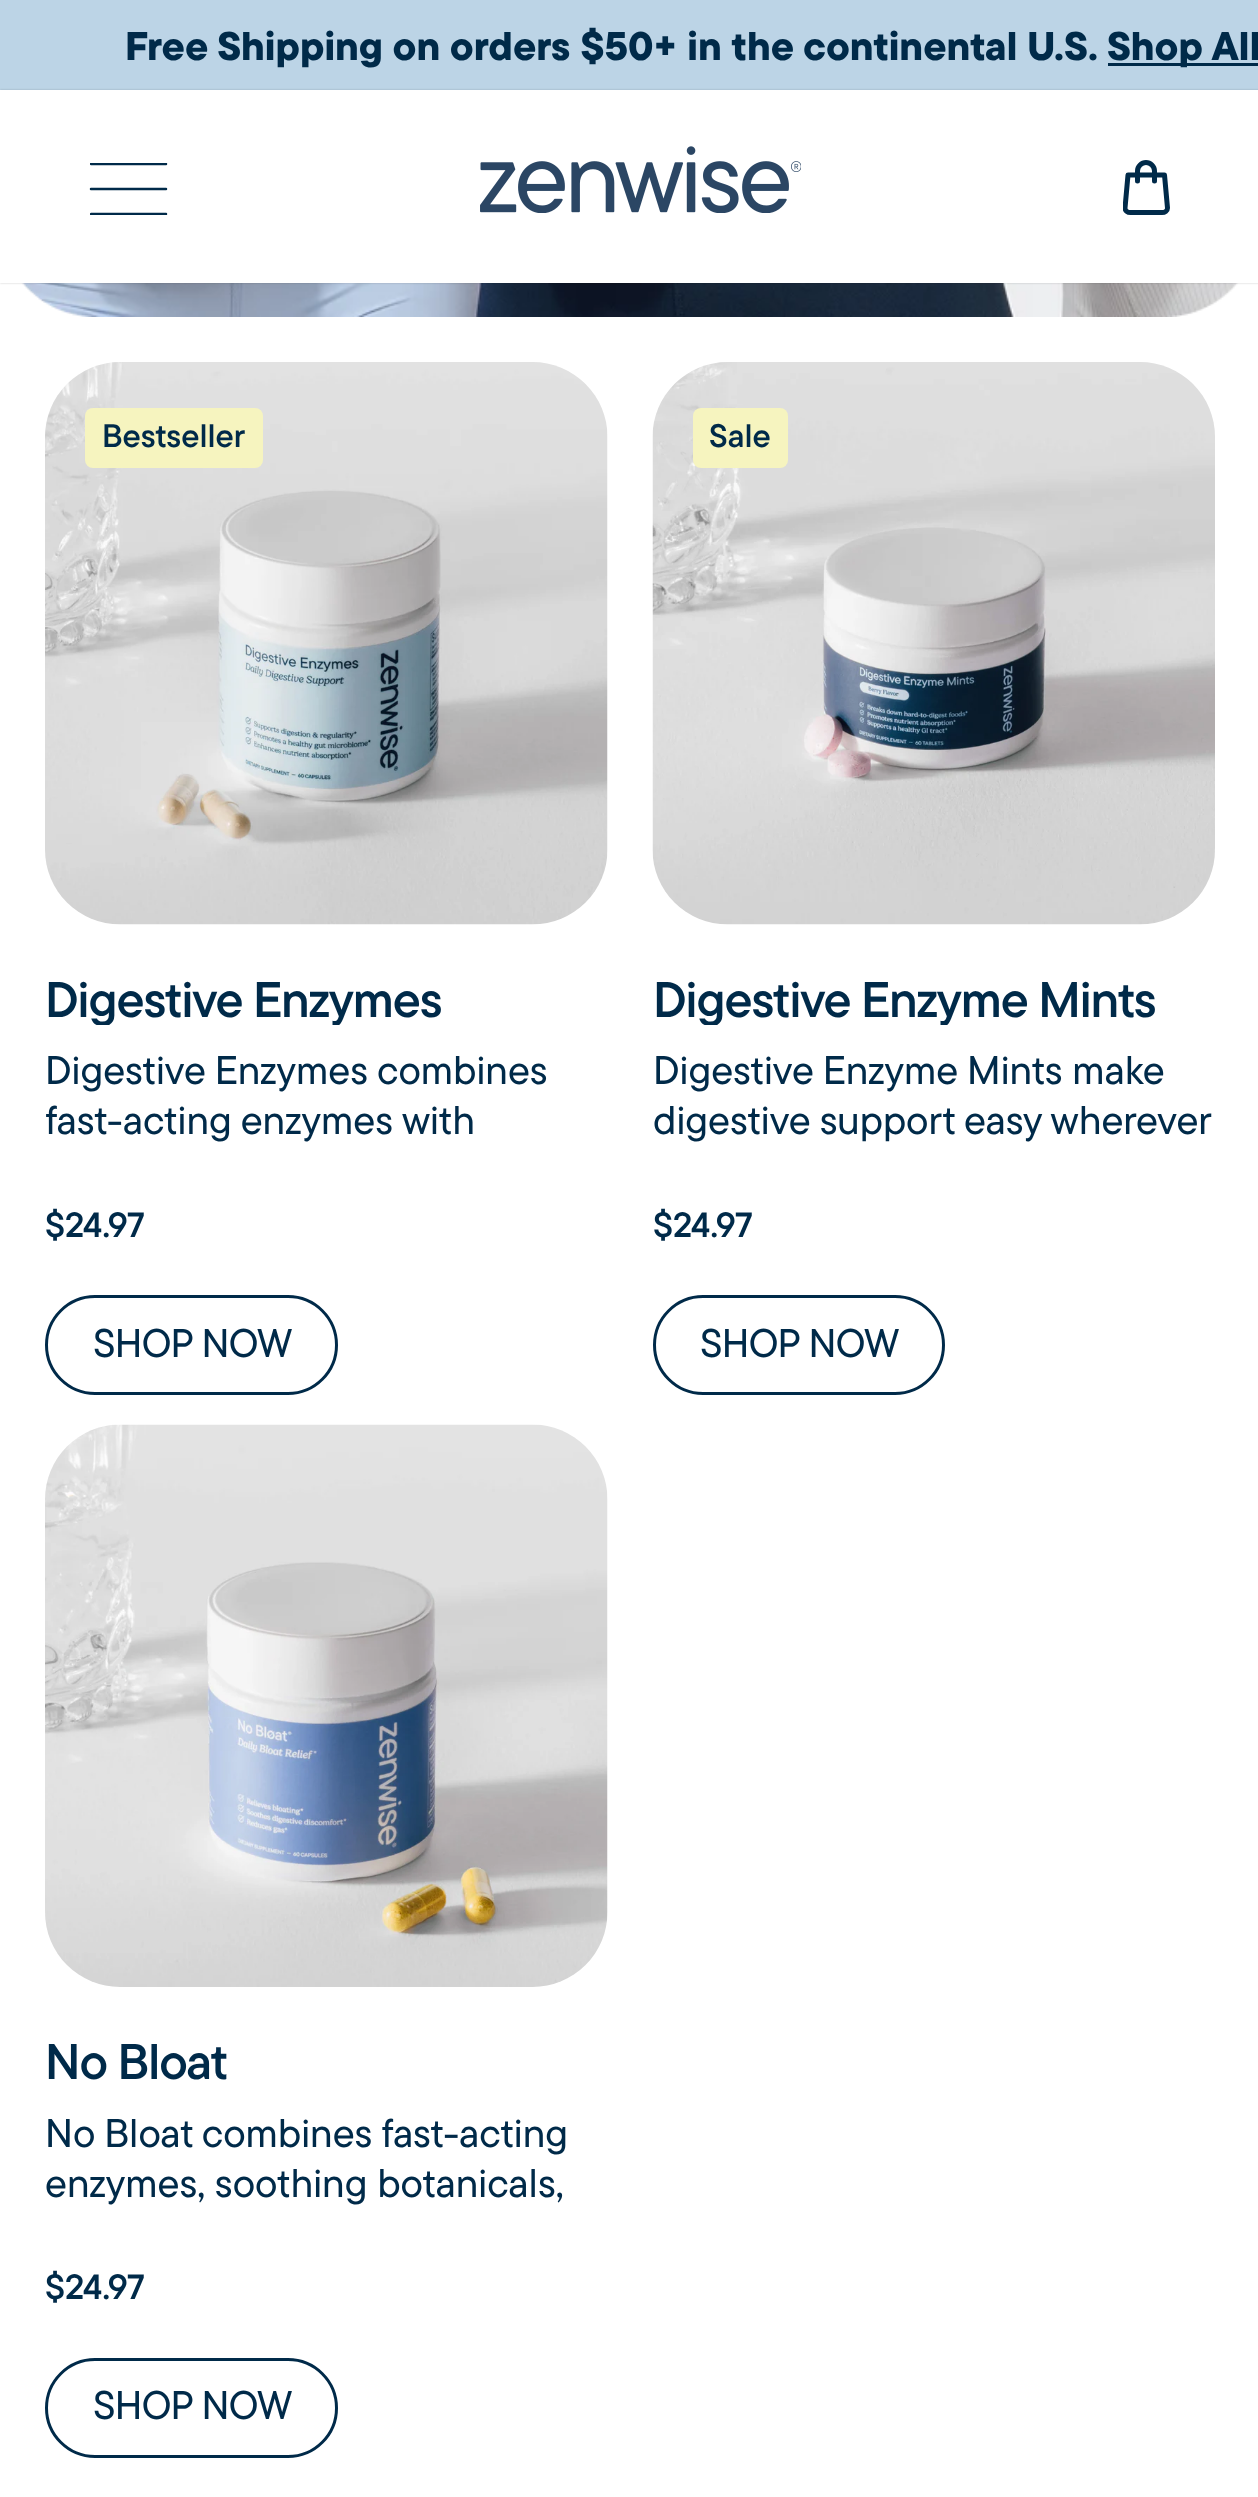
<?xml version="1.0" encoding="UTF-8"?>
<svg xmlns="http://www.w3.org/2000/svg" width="1258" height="2497">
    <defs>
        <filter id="blur1" x="-50%" y="-200%" width="200%" height="500%"><feGaussianBlur stdDeviation="1"/></filter>
        <clipPath id="clip1"><rect x="90" y="163" width="78" height="52"/></clipPath>
        <clipPath id="clip2"><rect x="1123" y="160" width="47" height="55"/></clipPath>
        <clipPath id="clip3"><rect x="45" y="975" width="563" height="50"/></clipPath>
        <clipPath id="clip4"><rect x="653" y="975" width="562" height="50"/></clipPath>
    </defs>
    <rect width="100%" height="100%" fill="#FFFFFF"/>
    <rect x="0" y="0" width="1258" height="90" fill="#BCD4E6"/>
    <text x="125" y="60" font-family="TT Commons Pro" font-size="40" font-weight="800" fill="#002A49">Free Shipping on orders $50+ in the continental U.S.</text>
    <rect x="1108" y="63" width="150" height="3" fill="#002A49"/>
    <text x="1107" y="60" font-family="TT Commons Pro" font-size="40" font-weight="800" fill="#002A49">Shop All</text>
    <image x="21" y="283" width="1218" height="34" href="img_02.png"/>
    <rect x="0" y="90" width="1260" height="193" fill="#000000" fill-opacity="0.2" filter="url(#blur1)"/>
    <rect x="0" y="90" width="1258" height="193" fill="#FFFFFF"/>
    <g clip-path="url(#clip1)">
        <path d="M 91 214 H 166" fill="none" stroke="#002A49" stroke-width="2.5" stroke-linecap="round"/>
    </g>
    <path d="M 91 189 H 166" fill="none" stroke="#002A49" stroke-width="2.5" stroke-linecap="round"/>
    <g clip-path="url(#clip1)">
        <path d="M 91 164 H 166" fill="none" stroke="#002A49" stroke-width="2.5" stroke-linecap="round"/>
    </g>
    <image x="480" y="146" width="321" height="67" href="img_01.png"/>
    <path d="M 1137.5 181 V 171 C 1137.5 166.5 1141.5 162.5 1146 162.5 C 1150.5 162.5 1154.5 166.5 1154.5 171 V 181" fill="none" stroke="#002A49" stroke-width="5" stroke-linecap="round" stroke-linejoin="round"/>
    <g clip-path="url(#clip2)">
        <path d="M 1164.5 175 L 1167.5 208 C 1167.5 210.5 1165 212.5 1162 212.5 H 1130.5 C 1127.5 212.5 1125 210.5 1125 208 L 1128 175 Z" fill="none" stroke="#002A49" stroke-width="5" stroke-linejoin="round"/>
    </g>
    <image x="45" y="362" width="563" height="563" href="img_03.png"/>
    <rect x="85" y="408" width="178" height="60" rx="8" fill="#F6F4BF"/>
    <text x="102" y="447" font-family="TT Commons Pro" font-size="32.5" font-weight="600" fill="#002A49">Bestseller</text>
    <g clip-path="url(#clip3)">
        <text x="45" y="1017" font-family="TT Commons Pro" font-size="50" font-weight="600" letter-spacing="-1" fill="#002A49">Digestive Enzymes</text>
    </g>
    <text font-family="TT Commons Pro" font-size="40" font-weight="500" fill="#002A49">
        <tspan x="45" y="1084">Digestive Enzymes combines</tspan>
        <tspan x="45" y="1134">fast-acting enzymes with</tspan>
    </text>
    <text x="45" y="1237" font-family="TT Commons Pro" font-size="35" font-weight="600" fill="#002A49">$24.97</text>
    <rect x="46.5" y="1296.5" width="290" height="97" rx="48.5" fill="none" stroke="#002A49" stroke-width="3"/>
    <text x="93" y="1357" font-family="TT Commons Pro" font-size="40" font-weight="500" letter-spacing="-0.75" fill="#002A49">SHOP NOW</text>
    <image x="652" y="362" width="563" height="563" href="img_04.png"/>
    <rect x="693" y="408" width="95" height="60" rx="8" fill="#F6F4BF"/>
    <text x="709" y="447" font-family="TT Commons Pro" font-size="32.5" font-weight="600" fill="#002A49">Sale</text>
    <g clip-path="url(#clip4)">
        <text x="653" y="1017" font-family="TT Commons Pro" font-size="50" font-weight="600" letter-spacing="-1" fill="#002A49">Digestive Enzyme Mints</text>
    </g>
    <text font-family="TT Commons Pro" font-size="40" font-weight="500" fill="#002A49">
        <tspan x="653" y="1084">Digestive Enzyme Mints make</tspan>
        <tspan x="653" y="1134">digestive support easy wherever</tspan>
    </text>
    <text x="653" y="1237" font-family="TT Commons Pro" font-size="35" font-weight="600" fill="#002A49">$24.97</text>
    <rect x="654.5" y="1296.5" width="289" height="97" rx="48.5" fill="none" stroke="#002A49" stroke-width="3"/>
    <text x="700" y="1357" font-family="TT Commons Pro" font-size="40" font-weight="500" letter-spacing="-0.75" fill="#002A49">SHOP NOW</text>
    <image x="45" y="1424" width="563" height="563" href="img_05.png"/>
    <text x="45" y="2079" font-family="TT Commons Pro" font-size="50" font-weight="600" letter-spacing="-1" fill="#002A49">No Bloat</text>
    <text font-family="TT Commons Pro" font-size="40" font-weight="500" fill="#002A49">
        <tspan x="45" y="2147">No Bloat combines fast-acting</tspan>
        <tspan x="45" y="2197">enzymes, soothing botanicals,</tspan>
    </text>
    <text x="45" y="2299" font-family="TT Commons Pro" font-size="35" font-weight="600" fill="#002A49">$24.97</text>
    <rect x="46.5" y="2359.5" width="290" height="97" rx="48.5" fill="none" stroke="#002A49" stroke-width="3"/>
    <text x="93" y="2419" font-family="TT Commons Pro" font-size="40" font-weight="500" letter-spacing="-0.75" fill="#002A49">SHOP NOW</text>
</svg>
